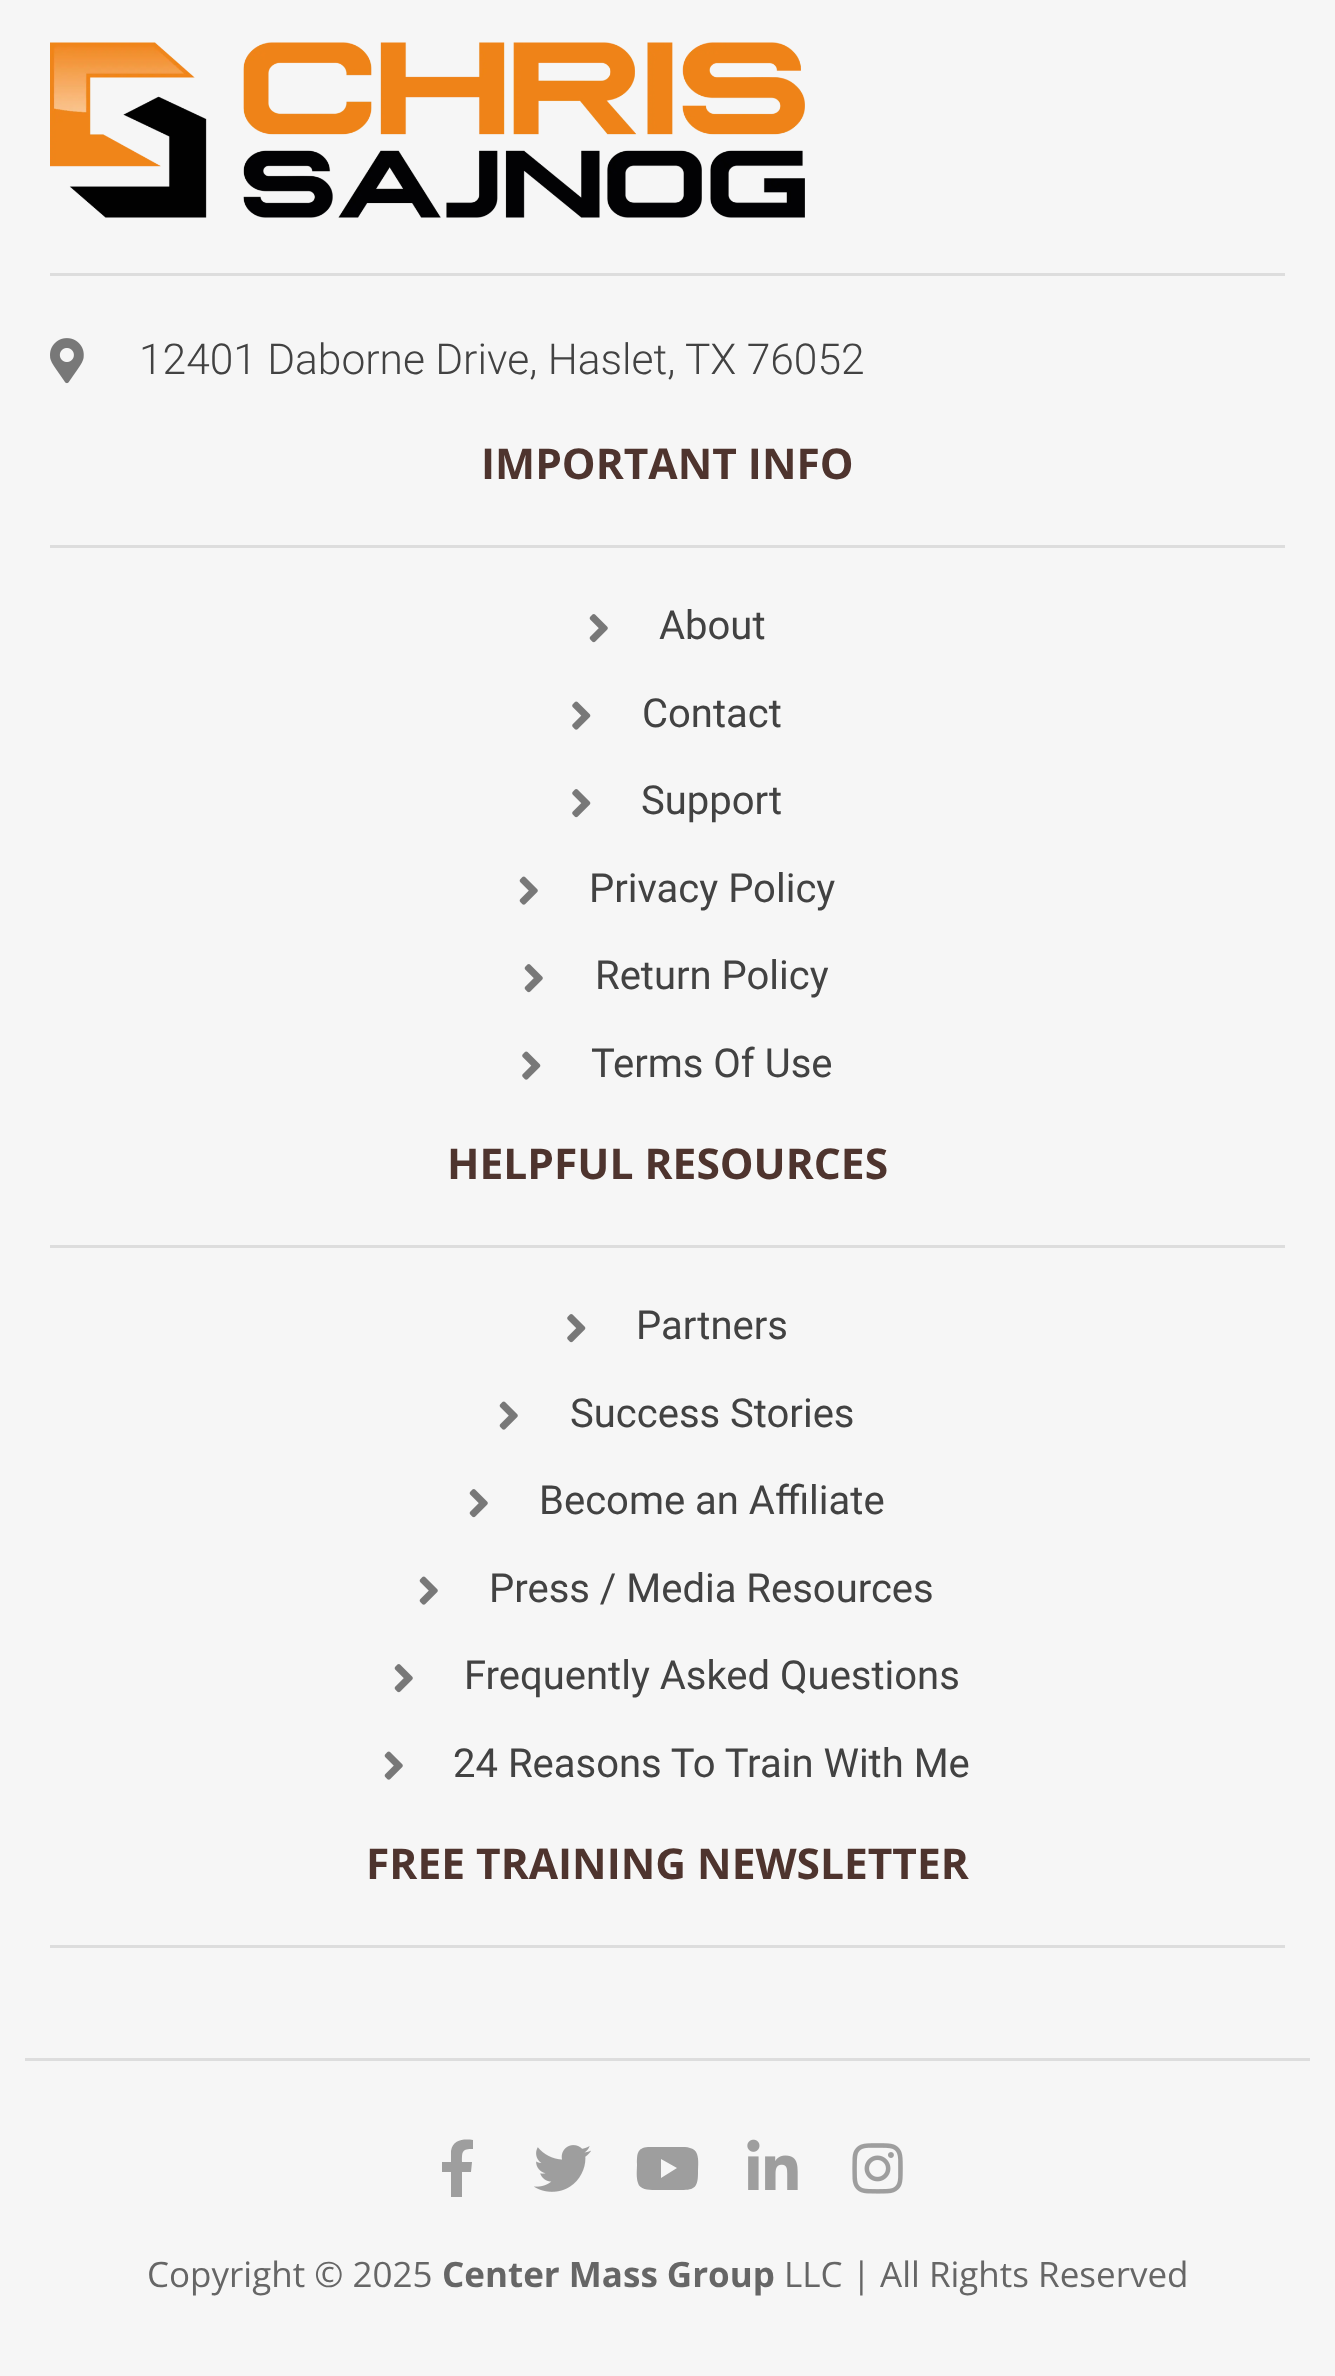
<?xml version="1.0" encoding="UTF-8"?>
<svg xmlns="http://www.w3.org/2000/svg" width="1335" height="2376">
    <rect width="100%" height="100%" fill="#F6F6F6"/>
    <image x="50" y="42" width="755" height="176" href="img_01.png"/>
    <rect x="50" y="273" width="1235" height="3" fill="#DDDDDD"/>
    <image x="50" y="338" width="34" height="46" href="img_02.png"/>
    <text x="139" y="374" font-family="Roboto" font-size="42.5" font-weight="300" fill="#424242">12401 Daborne Drive, Haslet, TX 76052</text>
    <text x="481" y="479" font-family="Open Sans" font-size="42.5" font-weight="700" fill="#4E342E">IMPORTANT INFO</text>
    <rect x="50" y="545" width="1235" height="3" fill="#DDDDDD"/>
    <image x="589" y="614" width="19" height="29" href="img_03.png"/>
    <text x="659" y="639" font-family="Roboto" font-size="40" fill="#424242">About</text>
    <image x="572" y="701" width="19" height="29" href="img_04.png"/>
    <text x="642" y="727" font-family="Roboto" font-size="40" fill="#424242">Contact</text>
    <image x="572" y="789" width="19" height="29" href="img_05.png"/>
    <text x="641" y="814" font-family="Roboto" font-size="40" fill="#424242">Support</text>
    <image x="519" y="876" width="19" height="29" href="img_06.png"/>
    <text x="589" y="902" font-family="Roboto" font-size="40" fill="#424242">Privacy Policy</text>
    <image x="524" y="964" width="19" height="29" href="img_03.png"/>
    <text x="595" y="989" font-family="Roboto" font-size="40" fill="#424242">Return Policy</text>
    <image x="522" y="1051" width="19" height="29" href="img_04.png"/>
    <text x="591" y="1077" font-family="Roboto" font-size="40" fill="#424242">Terms Of Use</text>
    <text x="447" y="1179" font-family="Open Sans" font-size="42.5" font-weight="700" fill="#4E342E">HELPFUL RESOURCES</text>
    <rect x="50" y="1245" width="1235" height="3" fill="#DDDDDD"/>
    <image x="567" y="1314" width="19" height="29" href="img_05.png"/>
    <text x="636" y="1339" font-family="Roboto" font-size="40" fill="#424242">Partners</text>
    <image x="499" y="1401" width="19" height="29" href="img_06.png"/>
    <text x="570" y="1427" font-family="Roboto" font-size="40" fill="#424242">Success Stories</text>
    <image x="469" y="1489" width="19" height="29" href="img_03.png"/>
    <text x="539" y="1514" font-family="Roboto" font-size="40" fill="#424242">Become an Affiliate</text>
    <image x="419" y="1576" width="19" height="29" href="img_06.png"/>
    <text x="489" y="1602" font-family="Roboto" font-size="40" fill="#424242">Press / Media Resources</text>
    <image x="394" y="1664" width="19" height="29" href="img_03.png"/>
    <text x="464" y="1689" font-family="Roboto" font-size="40" fill="#424242">Frequently Asked Questions</text>
    <image x="384" y="1751" width="19" height="29" href="img_06.png"/>
    <text x="453" y="1777" font-family="Roboto" font-size="40" fill="#424242">24 Reasons To Train With Me</text>
    <text x="366" y="1879" font-family="Open Sans" font-size="42.5" font-weight="700" fill="#4E342E">FREE TRAINING NEWSLETTER</text>
    <rect x="50" y="1945" width="1235" height="3" fill="#DDDDDD"/>
    <rect x="25" y="2058" width="1285" height="3" fill="#DDDDDD"/>
    <path d="M 471 2172 H 462 V 2197 H 451 V 2172 H 442 V 2162 H 451 V 2151 C 453 2139 464 2139 473 2140 V 2149 C 462 2149 462 2151 462 2162 H 472 Z" fill="#9E9E9E"/>
    <image x="534" y="2145" width="57" height="47" href="img_07.png"/>
    <path d="M 697 2154 C 699 2160 698 2166 698 2173 C 698 2191 692 2190 674 2190 H 659 C 653 2190 640 2191 638 2183 C 636 2177 637 2170 637 2164 C 637 2154 637 2148 648 2147 H 680 C 686 2147 695 2147 697 2154 Z M 661 2178 L 677 2168 L 661 2159 Z" fill="#9E9E9E"/>
    <image x="747" y="2139" width="51" height="51" href="img_08.png"/>
    <image x="852" y="2143" width="51" height="51" href="img_09.png"/>
    <text x="147" y="2287" font-family="Open Sans" font-size="35" fill="#666666">Copyright © 2025</text>
    <text x="442" y="2287" font-family="Open Sans" font-size="35" font-weight="700" fill="#666666">Center Mass Group</text>
    <text x="784" y="2287" font-family="Open Sans" font-size="35" fill="#666666">LLC | All Rights Reserved</text>
</svg>
